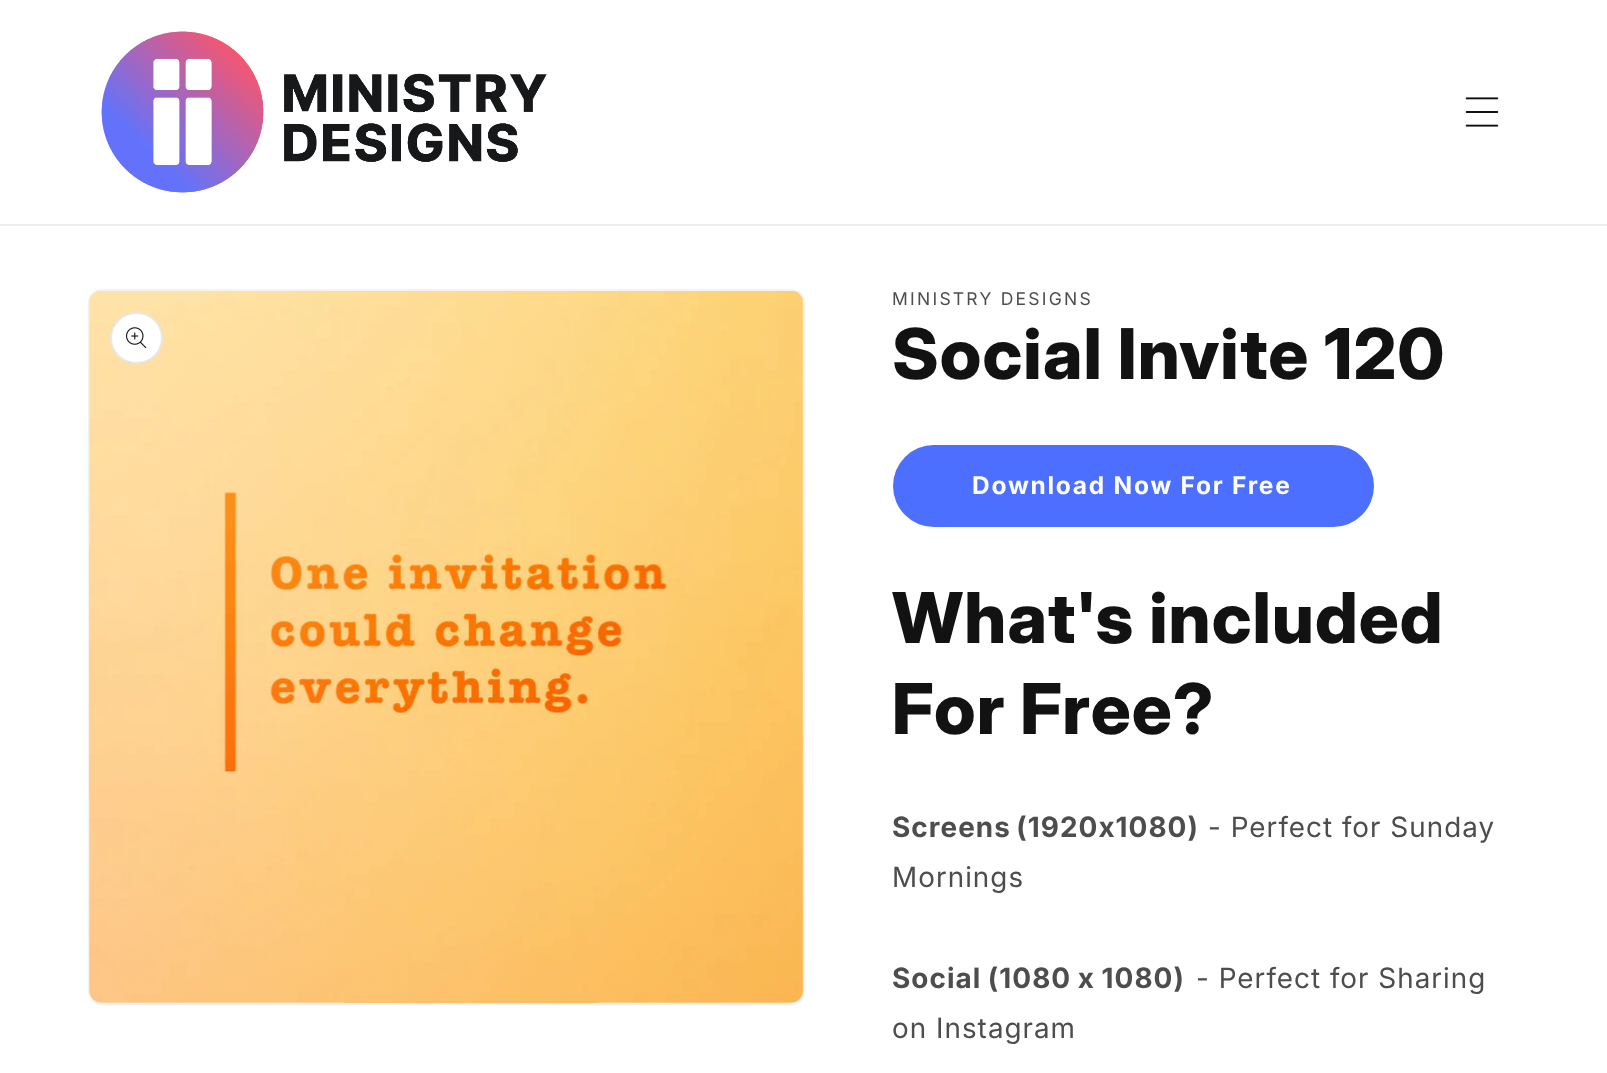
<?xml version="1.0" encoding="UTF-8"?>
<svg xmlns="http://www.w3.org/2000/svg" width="1607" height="1073">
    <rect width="100%" height="100%" fill="#FFFFFF"/>
    <rect x="0" y="224" width="1607" height="2" fill="#ECECEC"/>
    <image x="101" y="31" width="446" height="162" href="img_01.png"/>
    <image x="1465" y="97" width="34" height="30" href="img_02.png"/>
    <rect x="89" y="290" width="715" height="714" rx="13" fill="none" stroke="#F3F3F3" stroke-width="2"/>
    <image x="89" y="291" width="714" height="712" href="img_03.png"/>
    <rect x="110" y="312" width="53" height="52" rx="26" fill="#FFFFFF"/>
    <rect x="111" y="313" width="51" height="50" rx="25" fill="none" stroke="#121212" stroke-opacity="0.1" stroke-width="2"/>
    <image x="126" y="327" width="21" height="22" href="img_04.png"/>
    <text x="892" y="305" font-family="Inter" font-size="17.5" letter-spacing="2.25" fill="#4D4D4D">MINISTRY DESIGNS</text>
    <text x="892" y="379" font-family="Inter" font-size="70" font-weight="800" letter-spacing="1.05" fill="#121212">Social Invite 120</text>
    <rect x="893" y="445" width="481" height="82" rx="41" fill="#4D6FFF"/>
    <text x="972" y="494" font-family="'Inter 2'" font-size="24.5" font-weight="700" letter-spacing="1.75" fill="#FFFFFF">Download Now For Free</text>
    <text font-family="Inter" font-size="70" font-weight="800" letter-spacing="1.05" fill="#121212">
        <tspan x="892" y="643">What's included</tspan>
        <tspan x="892" y="734">For Free?</tspan>
    </text>
    <text x="892" y="837" word-spacing="-2" font-family="Inter" font-size="28" font-weight="700" letter-spacing="1.05" fill="#4D4D4D">Screens (1920x1080)</text>
    <text x="1208" y="837" font-family="'Inter 2'" font-size="28" letter-spacing="1.05" fill="#4D4D4D">- Perfect for Sunday</text>
    <text x="892" y="887" font-family="'Inter 2'" font-size="28" letter-spacing="1.05" fill="#4D4D4D">Mornings</text>
    <text x="892" y="988" word-spacing="-1" font-family="Inter" font-size="28" font-weight="700" letter-spacing="1.05" fill="#4D4D4D">Social (1080 x 1080)</text>
    <text x="1196" y="988" font-family="'Inter 2'" font-size="28" letter-spacing="1.05" fill="#4D4D4D">- Perfect for Sharing</text>
    <text x="892" y="1038" font-family="'Inter 2'" font-size="28" letter-spacing="1.05" fill="#4D4D4D">on Instagram</text>
</svg>
